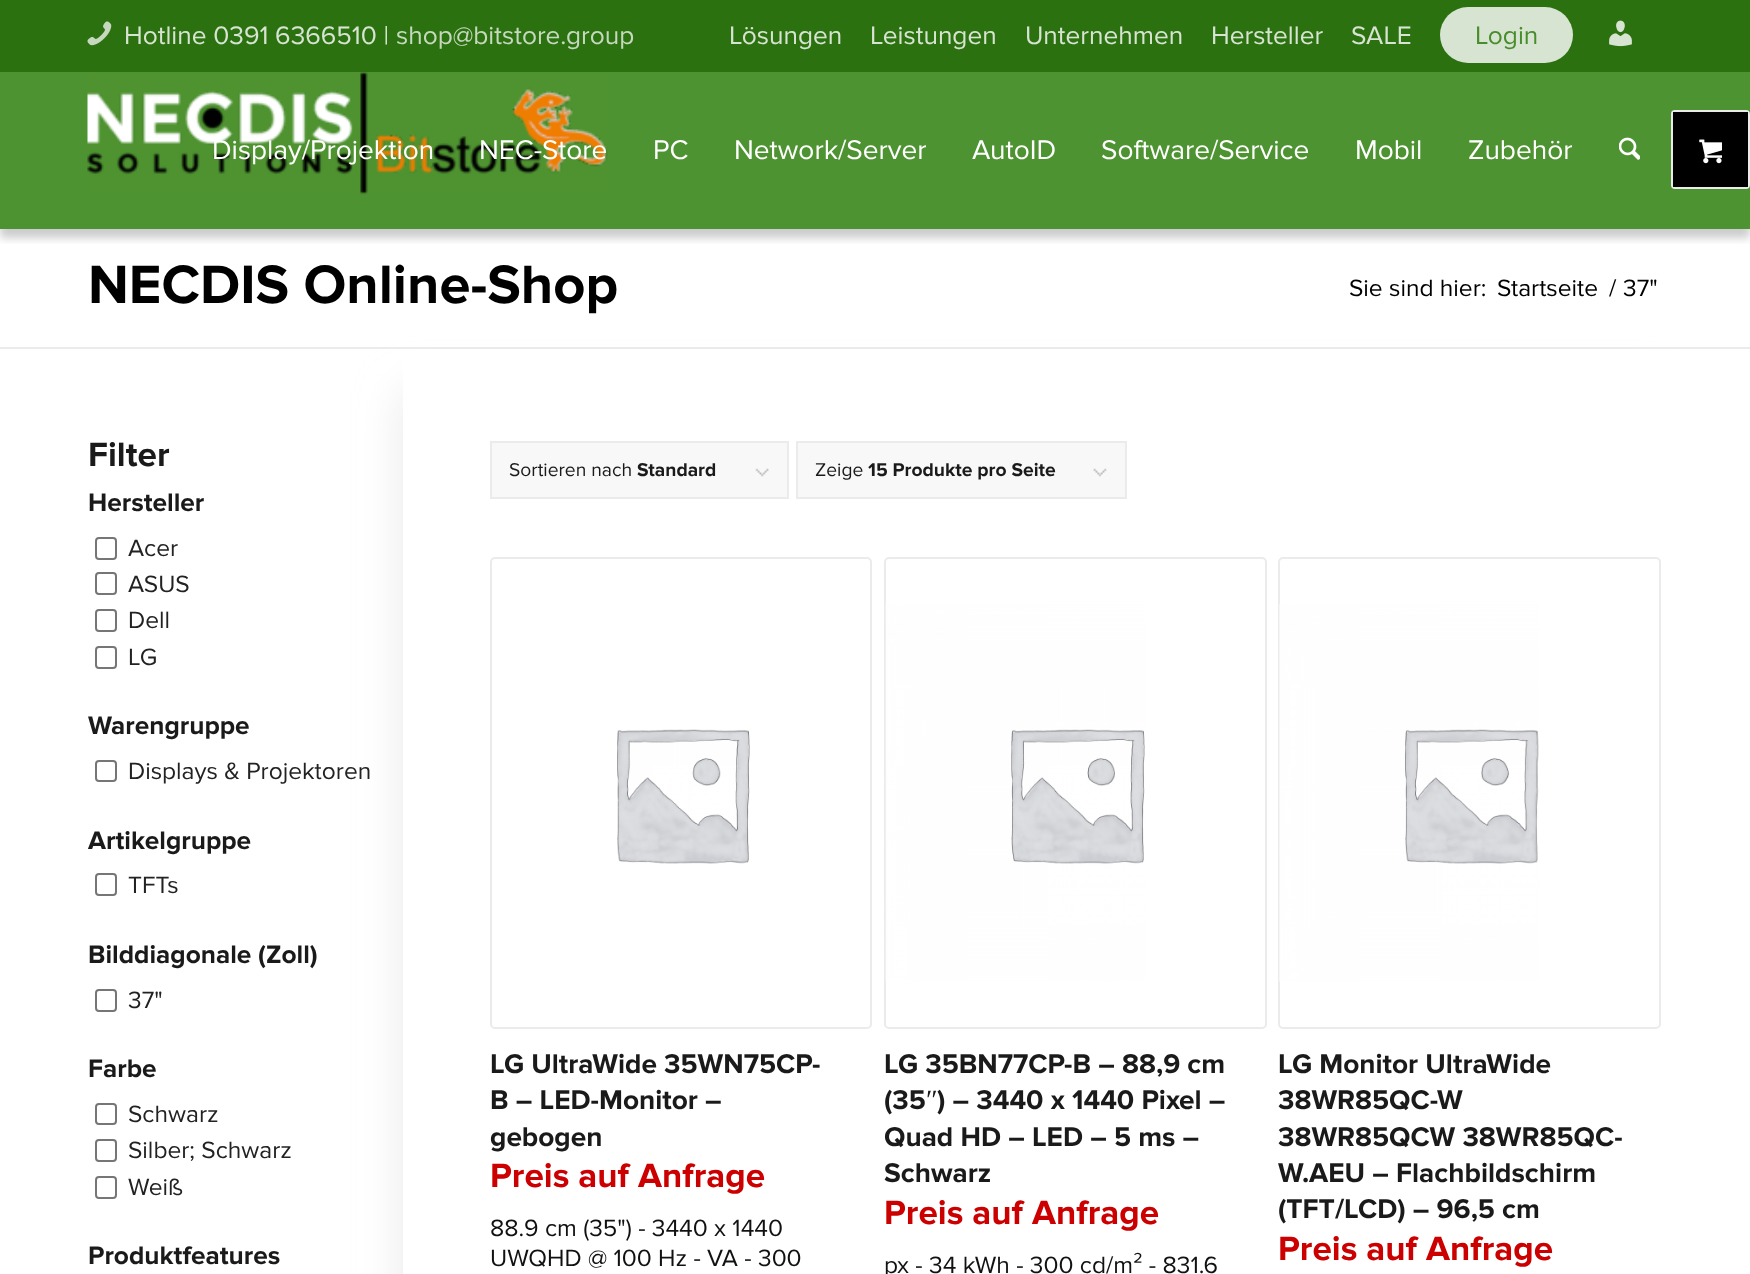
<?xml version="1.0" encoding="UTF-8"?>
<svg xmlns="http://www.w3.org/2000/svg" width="1750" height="1274">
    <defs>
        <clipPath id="clip1"><rect x="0" y="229" width="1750" height="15"/></clipPath>
        <filter id="blur1" x="-50%" y="-200%" width="200%" height="500%"><feGaussianBlur stdDeviation="4.5"/></filter>
        <clipPath id="clip2"><path d="M 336 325 H 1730 V 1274 H 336 Z M 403 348 H 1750 V 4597 H 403 Z" clip-rule="evenodd"/></clipPath>
        <filter id="blur2" x="-50%" y="-200%" width="200%" height="500%"><feGaussianBlur stdDeviation="22"/></filter>
    </defs>
    <rect width="100%" height="100%" fill="#FFFFFF"/>
    <rect x="0" y="72" width="1750" height="157" fill="#4E9331"/>
    <g clip-path="url(#clip1)">
        <rect x="0" y="81" width="1750" height="157" fill="#000000" fill-opacity="0.2" filter="url(#blur1)"/>
    </g>
    <rect x="0" y="0" width="1750" height="72" fill="#2C7110"/>
    <image x="87" y="21" width="25" height="25" href="img_01.png"/>
    <text x="124" y="44" font-family="Proxima Nova" font-size="26.25" fill="#D7E4D2">Hotline 0391 6366510 |</text>
    <text x="396" y="44" font-family="Proxima Nova" font-size="26.25" fill="#C6D9BE">shop@bitstore.group</text>
    <text x="729" y="44" font-family="Proxima Nova" font-size="26.25" fill="#D7E4D2">Lösungen</text>
    <text x="870" y="44" font-family="Proxima Nova" font-size="26.25" fill="#D7E4D2">Leistungen</text>
    <text x="1025" y="44" font-family="Proxima Nova" font-size="26.25" fill="#D7E4D2">Unternehmen</text>
    <text x="1211" y="44" font-family="Proxima Nova" font-size="26.25" fill="#D7E4D2">Hersteller</text>
    <text x="1351" y="44" font-family="Proxima Nova" font-size="26.25" fill="#D7E4D2">SALE</text>
    <rect x="1440" y="7" width="133" height="56" rx="28" fill="#D7E4D2"/>
    <text x="1475" y="44" font-family="Proxima Nova" font-size="26.25" fill="#488D2B">Login</text>
    <image x="1609" y="20" width="23" height="27" href="img_02.png"/>
    <image x="87" y="72" width="521" height="123" href="img_03.png"/>
    <text x="212" y="159" font-family="Proxima Nova" font-size="28" fill="#FFFFFF">Display/Projektion</text>
    <text x="479" y="159" font-family="Proxima Nova" font-size="28" fill="#FFFFFF">NEC-Store</text>
    <text x="653" y="159" font-family="Proxima Nova" font-size="28" fill="#FFFFFF">PC</text>
    <text x="734" y="159" font-family="Proxima Nova" font-size="28" fill="#FFFFFF">Network/Server</text>
    <text x="972" y="159" font-family="Proxima Nova" font-size="28" fill="#FFFFFF">AutoID</text>
    <text x="1101" y="159" font-family="Proxima Nova" font-size="28" fill="#FFFFFF">Software/Service</text>
    <text x="1355" y="159" font-family="Proxima Nova" font-size="28" fill="#FFFFFF">Mobil</text>
    <text x="1468" y="159" font-family="Proxima Nova" font-size="28" fill="#FFFFFF">Zubehör</text>
    <image x="1619" y="137" width="21" height="23" href="img_04.png"/>
    <rect x="1672" y="111" width="77" height="77" rx="3" fill="none" stroke="#EBEBEB" stroke-width="2"/>
    <rect x="1673" y="112" width="75" height="75" fill="#000000"/>
    <image x="1699" y="139" width="23" height="25" href="img_05.png"/>
    <text x="88" y="303" font-family="Proxima Nova" font-size="56" font-weight="700" fill="#000000">NECDIS Online-Shop</text>
    <text x="1349" y="296" font-family="Proxima Nova" font-size="24.5" fill="#000000">Sie sind hier:</text>
    <text x="1497" y="296" font-family="Proxima Nova" font-size="24.5" fill="#000000">Startseite</text>
    <text x="1609" y="296" font-family="Proxima Nova" font-size="24.5" fill="#000000">/</text>
    <text x="1623" y="296" font-family="Proxima Nova" font-size="24.5" fill="#000000">37"</text>
    <rect x="0" y="347" width="1750" height="2" fill="#EBEBEB"/>
    <text x="88" y="466" font-family="Proxima Nova" font-size="35" font-weight="700" fill="#1A1A1A">Filter</text>
    <text x="88" y="511" font-family="Proxima Nova" font-size="26.25" font-weight="700" fill="#1A1A1A">Hersteller</text>
    <rect x="96" y="538" width="20" height="21" rx="3" fill="none" stroke="#767676" stroke-width="2"/>
    <text x="128" y="556" font-family="Proxima Nova" font-size="24.5" fill="#222222">Acer</text>
    <rect x="96" y="573" width="20" height="21" rx="3" fill="none" stroke="#767676" stroke-width="2"/>
    <text x="128" y="592" font-family="Proxima Nova" font-size="24.5" fill="#222222">ASUS</text>
    <rect x="96" y="610" width="20" height="21" rx="3" fill="none" stroke="#767676" stroke-width="2"/>
    <text x="128" y="628" font-family="Proxima Nova" font-size="24.5" fill="#222222">Dell</text>
    <rect x="96" y="647" width="20" height="21" rx="3" fill="none" stroke="#767676" stroke-width="2"/>
    <text x="128" y="665" font-family="Proxima Nova" font-size="24.5" fill="#222222">LG</text>
    <text x="88" y="734" font-family="Proxima Nova" font-size="26.25" font-weight="700" fill="#1A1A1A">Warengruppe</text>
    <rect x="96" y="761" width="20" height="20" rx="3" fill="none" stroke="#767676" stroke-width="2"/>
    <g clip-path="url(#clip2)">
        <rect x="403" y="392" width="1260" height="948" fill="#E9E9EB" filter="url(#blur2)"/>
    </g>
    <text x="128" y="779" font-family="Proxima Nova" font-size="24.5" fill="#222222">Displays &amp; Projektoren</text>
    <text x="88" y="849" font-family="Proxima Nova" font-size="26.25" font-weight="700" fill="#1A1A1A">Artikelgruppe</text>
    <rect x="96" y="874" width="20" height="21" rx="3" fill="none" stroke="#767676" stroke-width="2"/>
    <text x="128" y="893" font-family="Proxima Nova" font-size="24.5" fill="#222222">TFTs</text>
    <text x="88" y="963" font-family="Proxima Nova" font-size="26.25" font-weight="700" fill="#1A1A1A">Bilddiagonale (Zoll)</text>
    <rect x="96" y="990" width="20" height="21" rx="3" fill="none" stroke="#767676" stroke-width="2"/>
    <text x="128" y="1008" font-family="Proxima Nova" font-size="24.5" fill="#222222">37"</text>
    <text x="88" y="1077" font-family="Proxima Nova" font-size="26.25" font-weight="700" fill="#1A1A1A">Farbe</text>
    <rect x="96" y="1104" width="20" height="20" rx="3" fill="none" stroke="#767676" stroke-width="2"/>
    <text x="128" y="1122" font-family="Proxima Nova" font-size="24.5" fill="#222222">Schwarz</text>
    <rect x="96" y="1140" width="20" height="21" rx="3" fill="none" stroke="#767676" stroke-width="2"/>
    <text x="128" y="1158" font-family="Proxima Nova" font-size="24.5" fill="#222222">Silber; Schwarz</text>
    <rect x="96" y="1177" width="20" height="21" rx="3" fill="none" stroke="#767676" stroke-width="2"/>
    <text x="128" y="1195" font-family="Proxima Nova" font-size="24.5" fill="#222222">Weiß</text>
    <text x="88" y="1264" font-family="Proxima Nova" font-size="26.25" font-weight="700" fill="#1A1A1A">Produktfeatures</text>
    <rect x="492" y="443" width="295" height="54" fill="#F8F8F8"/>
    <image x="755" y="468" width="14" height="9" href="img_06.png"/>
    <rect x="491" y="442" width="297" height="56" fill="none" stroke="#EBEBEB" stroke-width="2"/>
    <text x="509" y="476" font-family="Proxima Nova" font-size="19.25" fill="#1A1A1A">Sortieren nach</text>
    <text x="637" y="476" font-family="Proxima Nova" font-size="19.25" font-weight="700" fill="#1A1A1A">Standard</text>
    <rect x="798" y="443" width="327" height="54" fill="#F8F8F8"/>
    <image x="1093" y="468" width="14" height="9" href="img_07.png"/>
    <rect x="797" y="442" width="329" height="56" fill="none" stroke="#EBEBEB" stroke-width="2"/>
    <text x="815" y="476" font-family="Proxima Nova" font-size="19.25" fill="#1A1A1A">Zeige</text>
    <text x="868" y="476" font-family="Proxima Nova" font-size="19.25" font-weight="700" fill="#1A1A1A">15 Produkte pro Seite</text>
    <rect x="491" y="558" width="380" height="470" rx="4" fill="none" stroke="#EBEBEB" stroke-width="2"/>
    <image x="617" y="729" width="133" height="135" href="img_08.png"/>
    <text font-family="Proxima Nova" font-size="28" font-weight="700" fill="#1A1A1A">
        <tspan x="490" y="1073">LG UltraWide 35WN75CP-</tspan>
        <tspan x="490" y="1109">B – LED-Monitor –</tspan>
        <tspan x="490" y="1146">gebogen</tspan>
    </text>
    <text x="490" y="1187" font-family="Proxima Nova" font-size="35" font-weight="700" fill="#CC0000">Preis auf Anfrage</text>
    <text font-family="Proxima Nova" font-size="24.5" fill="#111111">
        <tspan x="490" y="1236">88.9 cm (35") - 3440 x 1440</tspan>
        <tspan x="490" y="1266">UWQHD @ 100 Hz - VA - 300</tspan>
    </text>
    <rect x="885" y="558" width="381" height="470" rx="4" fill="none" stroke="#EBEBEB" stroke-width="2"/>
    <image x="885" y="604" width="260" height="377" href="img_09.png"/>
    <text font-family="Proxima Nova" font-size="28" font-weight="700" fill="#1A1A1A">
        <tspan x="884" y="1073">LG 35BN77CP-B – 88,9 cm</tspan>
        <tspan x="884" y="1109">(35</tspan>
    </text>
    <text x="926" y="1109" font-family="Liberation Serif" font-size="28" fill="#1A1A1A">″</text>
    <text x="937" y="1109" font-family="Proxima Nova" font-size="28" font-weight="700" fill="#1A1A1A">) – 3440 x 1440 Pixel –</text>
    <text font-family="Proxima Nova" font-size="28" font-weight="700" fill="#1A1A1A">
        <tspan x="884" y="1146">Quad HD – LED – 5 ms –</tspan>
        <tspan x="884" y="1182">Schwarz</tspan>
    </text>
    <text x="884" y="1224" font-family="Proxima Nova" font-size="35" font-weight="700" fill="#CC0000">Preis auf Anfrage</text>
    <text x="884" y="1273" font-family="Proxima Nova" font-size="24.5" fill="#111111">px - 34 kWh - 300 cd/m² - 831.6</text>
    <rect x="1279" y="558" width="381" height="470" rx="4" fill="none" stroke="#EBEBEB" stroke-width="2"/>
    <image x="1279" y="604" width="260" height="378" href="img_10.png"/>
    <text font-family="Proxima Nova" font-size="28" font-weight="700" fill="#1A1A1A">
        <tspan x="1278" y="1073">LG Monitor UltraWide</tspan>
        <tspan x="1278" y="1109">38WR85QC-W</tspan>
        <tspan x="1278" y="1146">38WR85QCW 38WR85QC-</tspan>
        <tspan x="1278" y="1182">W.AEU – Flachbildschirm</tspan>
        <tspan x="1278" y="1218">(TFT/LCD) – 96,5 cm</tspan>
    </text>
    <text x="1278" y="1260" font-family="Proxima Nova" font-size="35" font-weight="700" fill="#CC0000">Preis auf Anfrage</text>
</svg>
